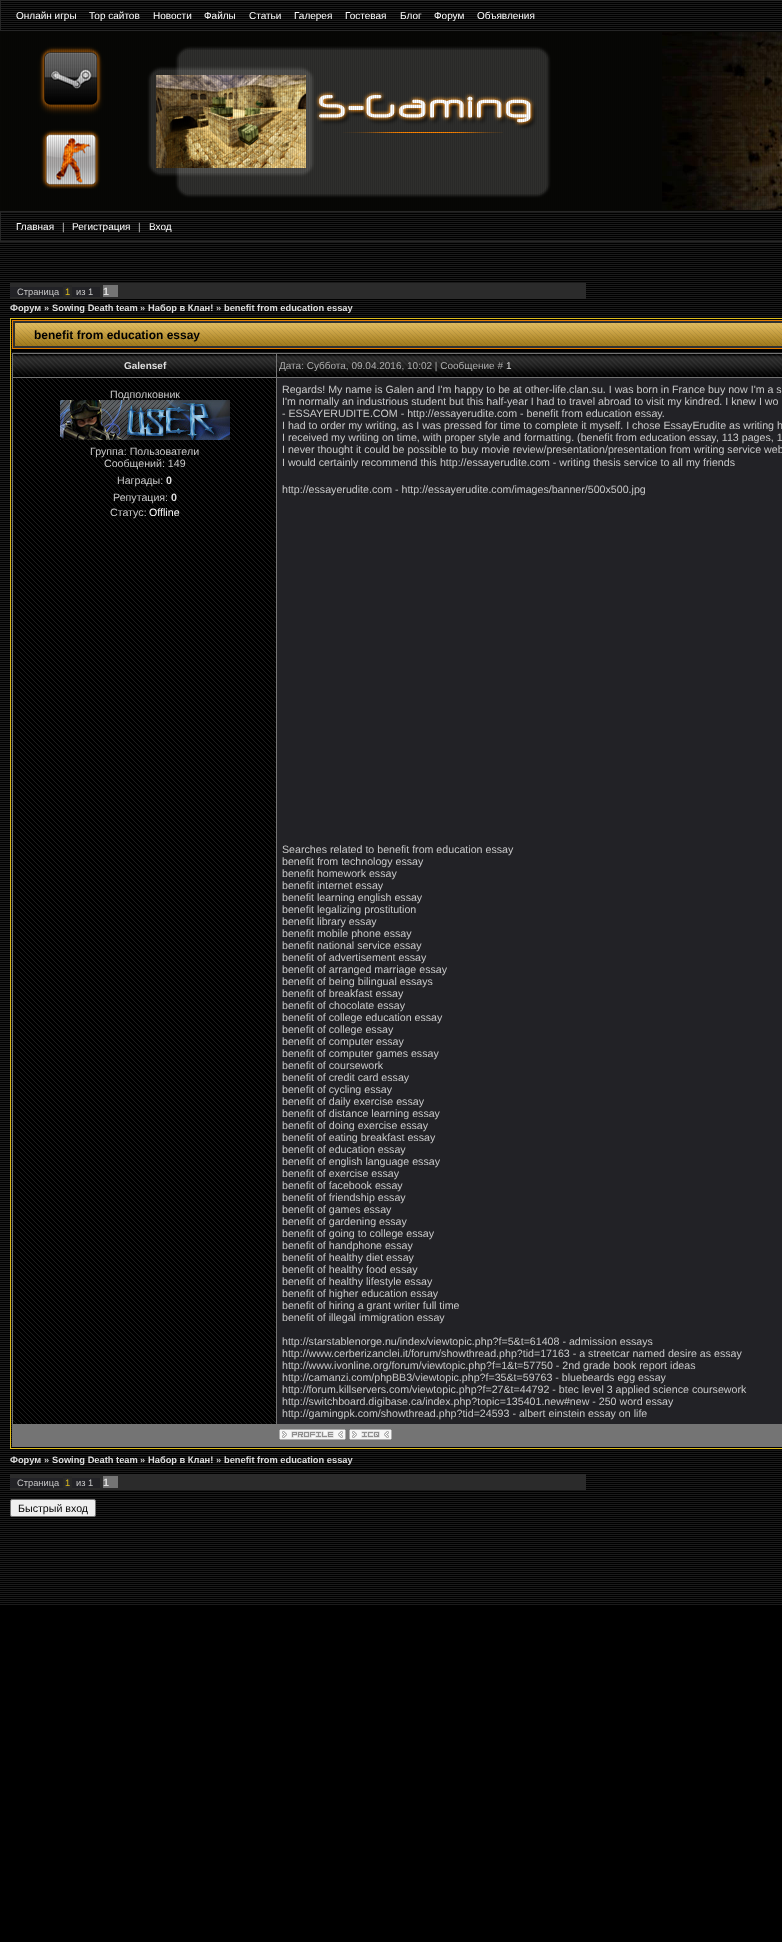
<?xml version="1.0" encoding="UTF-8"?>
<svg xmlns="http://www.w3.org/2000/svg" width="782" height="1942">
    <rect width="100%" height="100%" fill="#000000"/>
    <image x="0" y="1" width="782" height="1604" href="img_01.png"/>
    <rect x="0.5" y="0.5" width="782" height="30" fill="none" stroke="#262626"/>
    <text x="16" y="19" font-family="Liberation Sans" font-size="10" fill="#FFFFFF">Онлайн игры</text>
    <text x="89" y="19" font-family="Liberation Sans" font-size="10" fill="#FFFFFF">Тор сайтов</text>
    <text x="153" y="19" font-family="Liberation Sans" font-size="10" fill="#FFFFFF">Новости</text>
    <text x="204" y="19" font-family="Liberation Sans" font-size="10" fill="#FFFFFF">Файлы</text>
    <text x="249" y="19" font-family="Liberation Sans" font-size="10" fill="#FFFFFF">Статьи</text>
    <text x="294" y="19" font-family="Liberation Sans" font-size="10" fill="#FFFFFF">Галерея</text>
    <text x="345" y="19" font-family="Liberation Sans" font-size="10" fill="#FFFFFF">Гостевая</text>
    <text x="400" y="19" font-family="Liberation Sans" font-size="10" fill="#FFFFFF">Блог</text>
    <text x="434" y="19" font-family="Liberation Sans" font-size="10" fill="#FFFFFF">Форум</text>
    <text x="477" y="19" font-family="Liberation Sans" font-size="10" fill="#FFFFFF">Объявления</text>
    <image x="0" y="31" width="782" height="180" href="img_02.png"/>
    <rect x="0.5" y="211.5" width="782" height="30" fill="none" stroke="#262626"/>
    <text x="16" y="230" font-family="Liberation Sans" font-size="10" fill="#FFFFFF">Главная</text>
    <text x="62" y="230" font-family="Liberation Sans" font-size="10" fill="#C8C8C8">|</text>
    <text x="72" y="230" font-family="Liberation Sans" font-size="10" fill="#FFFFFF">Регистрация</text>
    <text x="138" y="230" font-family="Liberation Sans" font-size="10" fill="#C8C8C8">|</text>
    <text x="149" y="230" font-family="Liberation Sans" font-size="10" fill="#FFFFFF">Вход</text>
    <rect x="10" y="283" width="576" height="16" fill="#2B2B2B"/>
    <rect x="10" y="287" width="90" height="10" fill="#222226"/>
    <text x="17" y="295" font-family="Liberation Sans" font-size="9.3" fill="#C8C8C8">Страница</text>
    <rect x="64" y="286" width="7" height="12" fill="#2C2C2C" stroke="#282828" stroke-width="2"/>
    <text x="65" y="295" font-family="Liberation Sans" font-size="9.3" fill="#DEBC1D">1</text>
    <text x="76" y="295" font-family="Liberation Sans" font-size="9.3" fill="#C8C8C8">из 1</text>
    <rect x="103" y="285" width="15" height="12" fill="#747474"/>
    <text x="103" y="295" font-family="Liberation Sans" font-size="10.65" font-weight="700" fill="#DEDEDE">1</text>
    <text x="10" y="311" font-family="Liberation Sans" font-size="9.3" font-weight="700" fill="#DEDEDE">Форум</text>
    <text x="44" y="311" font-family="Liberation Sans" font-size="9.3" font-weight="700" fill="#C8C8C8">»</text>
    <text x="52" y="311" font-family="Liberation Sans" font-size="9.3" font-weight="700" fill="#DEDEDE">Sowing Death team</text>
    <text x="140" y="311" font-family="Liberation Sans" font-size="9.3" font-weight="700" fill="#C8C8C8">»</text>
    <text x="148" y="311" font-family="Liberation Sans" font-size="9.3" font-weight="700" fill="#DEDEDE">Набор в Клан!</text>
    <text x="216" y="311" font-family="Liberation Sans" font-size="9.3" font-weight="700" fill="#C8C8C8">»</text>
    <text x="224" y="311" font-family="Liberation Sans" font-size="9.3" font-weight="700" fill="#DEDEDE">benefit from education essay</text>
    <rect x="10.5" y="318.5" width="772" height="1130" fill="none" stroke="#DEBC1D"/>
    <image x="12" y="320" width="770" height="29" href="img_03.png"/>
    <text x="34" y="339" font-family="Liberation Sans" font-size="12" font-weight="700" fill="#000000">benefit from education essay</text>
    <rect x="12" y="350" width="770" height="1" fill="#000000"/>
    <rect x="12" y="353" width="770" height="1094" fill="#747474"/>
    <image x="13" y="354" width="263" height="23" href="img_04.png"/>
    <text x="124" y="369" font-family="Liberation Sans" font-size="10" font-weight="700" fill="#DEDEDE">Galensef</text>
    <image x="277" y="354" width="505" height="23" href="img_05.png"/>
    <text x="279" y="369" font-family="Liberation Sans" font-size="10" fill="#ACACAC">Дата: Суббота, 09.04.2016, 10:02 | Сообщение #</text>
    <text x="506" y="369" font-family="Liberation Sans" font-size="10" fill="#DEDEDE">1</text>
    <image x="13" y="378" width="263" height="1046" href="img_06.png"/>
    <text x="110" y="398" font-family="Liberation Sans" font-size="10.65" fill="#C8C8C8">Подполковник</text>
    <image x="60" y="400" width="170" height="40" href="img_07.png"/>
    <text x="90" y="455" font-family="Liberation Sans" font-size="10.65" fill="#C8C8C8">Группа: Пользователи</text>
    <text x="104" y="467" font-family="Liberation Sans" font-size="10.65" fill="#C8C8C8">Сообщений: 149</text>
    <text x="117" y="484" font-family="Liberation Sans" font-size="10.65" fill="#C8C8C8">Награды:</text>
    <text x="166" y="484" font-family="Liberation Sans" font-size="10.65" font-weight="700" fill="#DEDEDE">0</text>
    <text x="113" y="501" font-family="Liberation Sans" font-size="10.65" fill="#C8C8C8">Репутация:</text>
    <text x="171" y="501" font-family="Liberation Sans" font-size="10.65" font-weight="700" fill="#DEDEDE">0</text>
    <text x="110" y="516" font-family="Liberation Sans" font-size="10.65" fill="#C8C8C8">Статус:</text>
    <text x="149" y="516" font-family="Liberation Sans" font-size="10.65" fill="#FFFFFF">Offline</text>
    <rect x="277" y="378" width="505" height="1046" fill="#222226"/>
    <text font-family="Liberation Sans" font-size="10.65" fill="#C8C8C8">
        <tspan x="282" y="393">Regards! My name is Galen and I'm happy to be at other-life.clan.su. I was born in France buy now I'm a s</tspan>
        <tspan x="282" y="405">I'm normally an industrious student but this half-year I had to travel abroad to visit my kindred. I knew I wo</tspan>
        <tspan x="282" y="417">- ESSAYERUDITE.COM - http://essayerudite.com - benefit from education essay.</tspan>
        <tspan x="282" y="429">I had to order my writing, as I was pressed for time to complete it myself. I chose EssayErudite as writing h</tspan>
        <tspan x="282" y="441">I received my writing on time, with proper style and formatting. (benefit from education essay, 113 pages, 1</tspan>
        <tspan x="282" y="453">I never thought it could be possible to buy movie review/presentation/presentation from writing service web</tspan>
        <tspan x="282" y="466">I would certainly recommend this http://essayerudite.com - writing thesis service to all my friends</tspan>
    </text>
    <text x="282" y="493" font-family="Liberation Sans" font-size="10.65" fill="#C8C8C8">http://essayerudite.com - http://essayerudite.com/images/banner/500x500.jpg</text>
    <text font-family="Liberation Sans" font-size="10.65" fill="#C8C8C8">
        <tspan x="282" y="853">Searches related to benefit from education essay</tspan>
        <tspan x="282" y="865">benefit from technology essay</tspan>
        <tspan x="282" y="877">benefit homework essay</tspan>
        <tspan x="282" y="889">benefit internet essay</tspan>
        <tspan x="282" y="901">benefit learning english essay</tspan>
        <tspan x="282" y="913">benefit legalizing prostitution</tspan>
        <tspan x="282" y="925">benefit library essay</tspan>
        <tspan x="282" y="937">benefit mobile phone essay</tspan>
        <tspan x="282" y="949">benefit national service essay</tspan>
        <tspan x="282" y="961">benefit of advertisement essay</tspan>
        <tspan x="282" y="973">benefit of arranged marriage essay</tspan>
        <tspan x="282" y="985">benefit of being bilingual essays</tspan>
        <tspan x="282" y="997">benefit of breakfast essay</tspan>
        <tspan x="282" y="1009">benefit of chocolate essay</tspan>
        <tspan x="282" y="1021">benefit of college education essay</tspan>
        <tspan x="282" y="1033">benefit of college essay</tspan>
        <tspan x="282" y="1045">benefit of computer essay</tspan>
        <tspan x="282" y="1057">benefit of computer games essay</tspan>
        <tspan x="282" y="1069">benefit of coursework</tspan>
        <tspan x="282" y="1081">benefit of credit card essay</tspan>
        <tspan x="282" y="1093">benefit of cycling essay</tspan>
        <tspan x="282" y="1105">benefit of daily exercise essay</tspan>
        <tspan x="282" y="1117">benefit of distance learning essay</tspan>
        <tspan x="282" y="1129">benefit of doing exercise essay</tspan>
        <tspan x="282" y="1141">benefit of eating breakfast essay</tspan>
        <tspan x="282" y="1153">benefit of education essay</tspan>
        <tspan x="282" y="1165">benefit of english language essay</tspan>
        <tspan x="282" y="1177">benefit of exercise essay</tspan>
        <tspan x="282" y="1189">benefit of facebook essay</tspan>
        <tspan x="282" y="1201">benefit of friendship essay</tspan>
        <tspan x="282" y="1213">benefit of games essay</tspan>
        <tspan x="282" y="1225">benefit of gardening essay</tspan>
        <tspan x="282" y="1237">benefit of going to college essay</tspan>
        <tspan x="282" y="1249">benefit of handphone essay</tspan>
        <tspan x="282" y="1261">benefit of healthy diet essay</tspan>
        <tspan x="282" y="1273">benefit of healthy food essay</tspan>
        <tspan x="282" y="1285">benefit of healthy lifestyle essay</tspan>
        <tspan x="282" y="1297">benefit of higher education essay</tspan>
        <tspan x="282" y="1309">benefit of hiring a grant writer full time</tspan>
        <tspan x="282" y="1321">benefit of illegal immigration essay</tspan>
    </text>
    <text font-family="Liberation Sans" font-size="10.65" fill="#C8C8C8">
        <tspan x="282" y="1345">http://starstablenorge.nu/index/viewtopic.php?f=5&amp;t=61408 - admission essays</tspan>
        <tspan x="282" y="1357">http://www.cerberizanclei.it/forum/showthread.php?tid=17163 - a streetcar named desire as essay</tspan>
        <tspan x="282" y="1369">http://www.ivonline.org/forum/viewtopic.php?f=1&amp;t=57750 - 2nd grade book report ideas</tspan>
        <tspan x="282" y="1381">http://camanzi.com/phpBB3/viewtopic.php?f=35&amp;t=59763 - bluebeards egg essay</tspan>
        <tspan x="282" y="1393">http://forum.killservers.com/viewtopic.php?f=27&amp;t=44792 - btec level 3 applied science coursework</tspan>
        <tspan x="282" y="1405">http://switchboard.digibase.ca/index.php?topic=135401.new#new - 250 word essay</tspan>
        <tspan x="282" y="1417">http://gamingpk.com/showthread.php?tid=24593 - albert einstein essay on life</tspan>
    </text>
    <image x="279" y="1429" width="67" height="11" href="img_08.png"/>
    <image x="349" y="1429" width="43" height="11" href="img_09.png"/>
    <text x="10" y="1463" font-family="Liberation Sans" font-size="9.3" font-weight="700" fill="#DEDEDE">Форум</text>
    <text x="44" y="1463" font-family="Liberation Sans" font-size="9.3" font-weight="700" fill="#C8C8C8">»</text>
    <text x="52" y="1463" font-family="Liberation Sans" font-size="9.3" font-weight="700" fill="#DEDEDE">Sowing Death team</text>
    <text x="140" y="1463" font-family="Liberation Sans" font-size="9.3" font-weight="700" fill="#C8C8C8">»</text>
    <text x="148" y="1463" font-family="Liberation Sans" font-size="9.3" font-weight="700" fill="#DEDEDE">Набор в Клан!</text>
    <text x="216" y="1463" font-family="Liberation Sans" font-size="9.3" font-weight="700" fill="#C8C8C8">»</text>
    <text x="224" y="1463" font-family="Liberation Sans" font-size="9.3" font-weight="700" fill="#DEDEDE">benefit from education essay</text>
    <rect x="10" y="1474" width="576" height="16" fill="#2B2B2B"/>
    <rect x="10" y="1478" width="90" height="10" fill="#222226"/>
    <text x="17" y="1486" font-family="Liberation Sans" font-size="9.3" fill="#C8C8C8">Страница</text>
    <rect x="64" y="1477" width="7" height="12" fill="#2C2C2C" stroke="#282828" stroke-width="2"/>
    <text x="65" y="1486" font-family="Liberation Sans" font-size="9.3" fill="#DEBC1D">1</text>
    <text x="76" y="1486" font-family="Liberation Sans" font-size="9.3" fill="#C8C8C8">из 1</text>
    <rect x="103" y="1476" width="15" height="12" fill="#747474"/>
    <text x="103" y="1486" font-family="Liberation Sans" font-size="10.65" font-weight="700" fill="#DEDEDE">1</text>
    <rect x="10.5" y="1499.5" width="85" height="17" rx="1.5" fill="#EFEFEF" stroke="#767676"/>
    <text x="18" y="1512" font-family="Liberation Sans" font-size="10.65" fill="#000000">Быстрый вход</text>
</svg>
